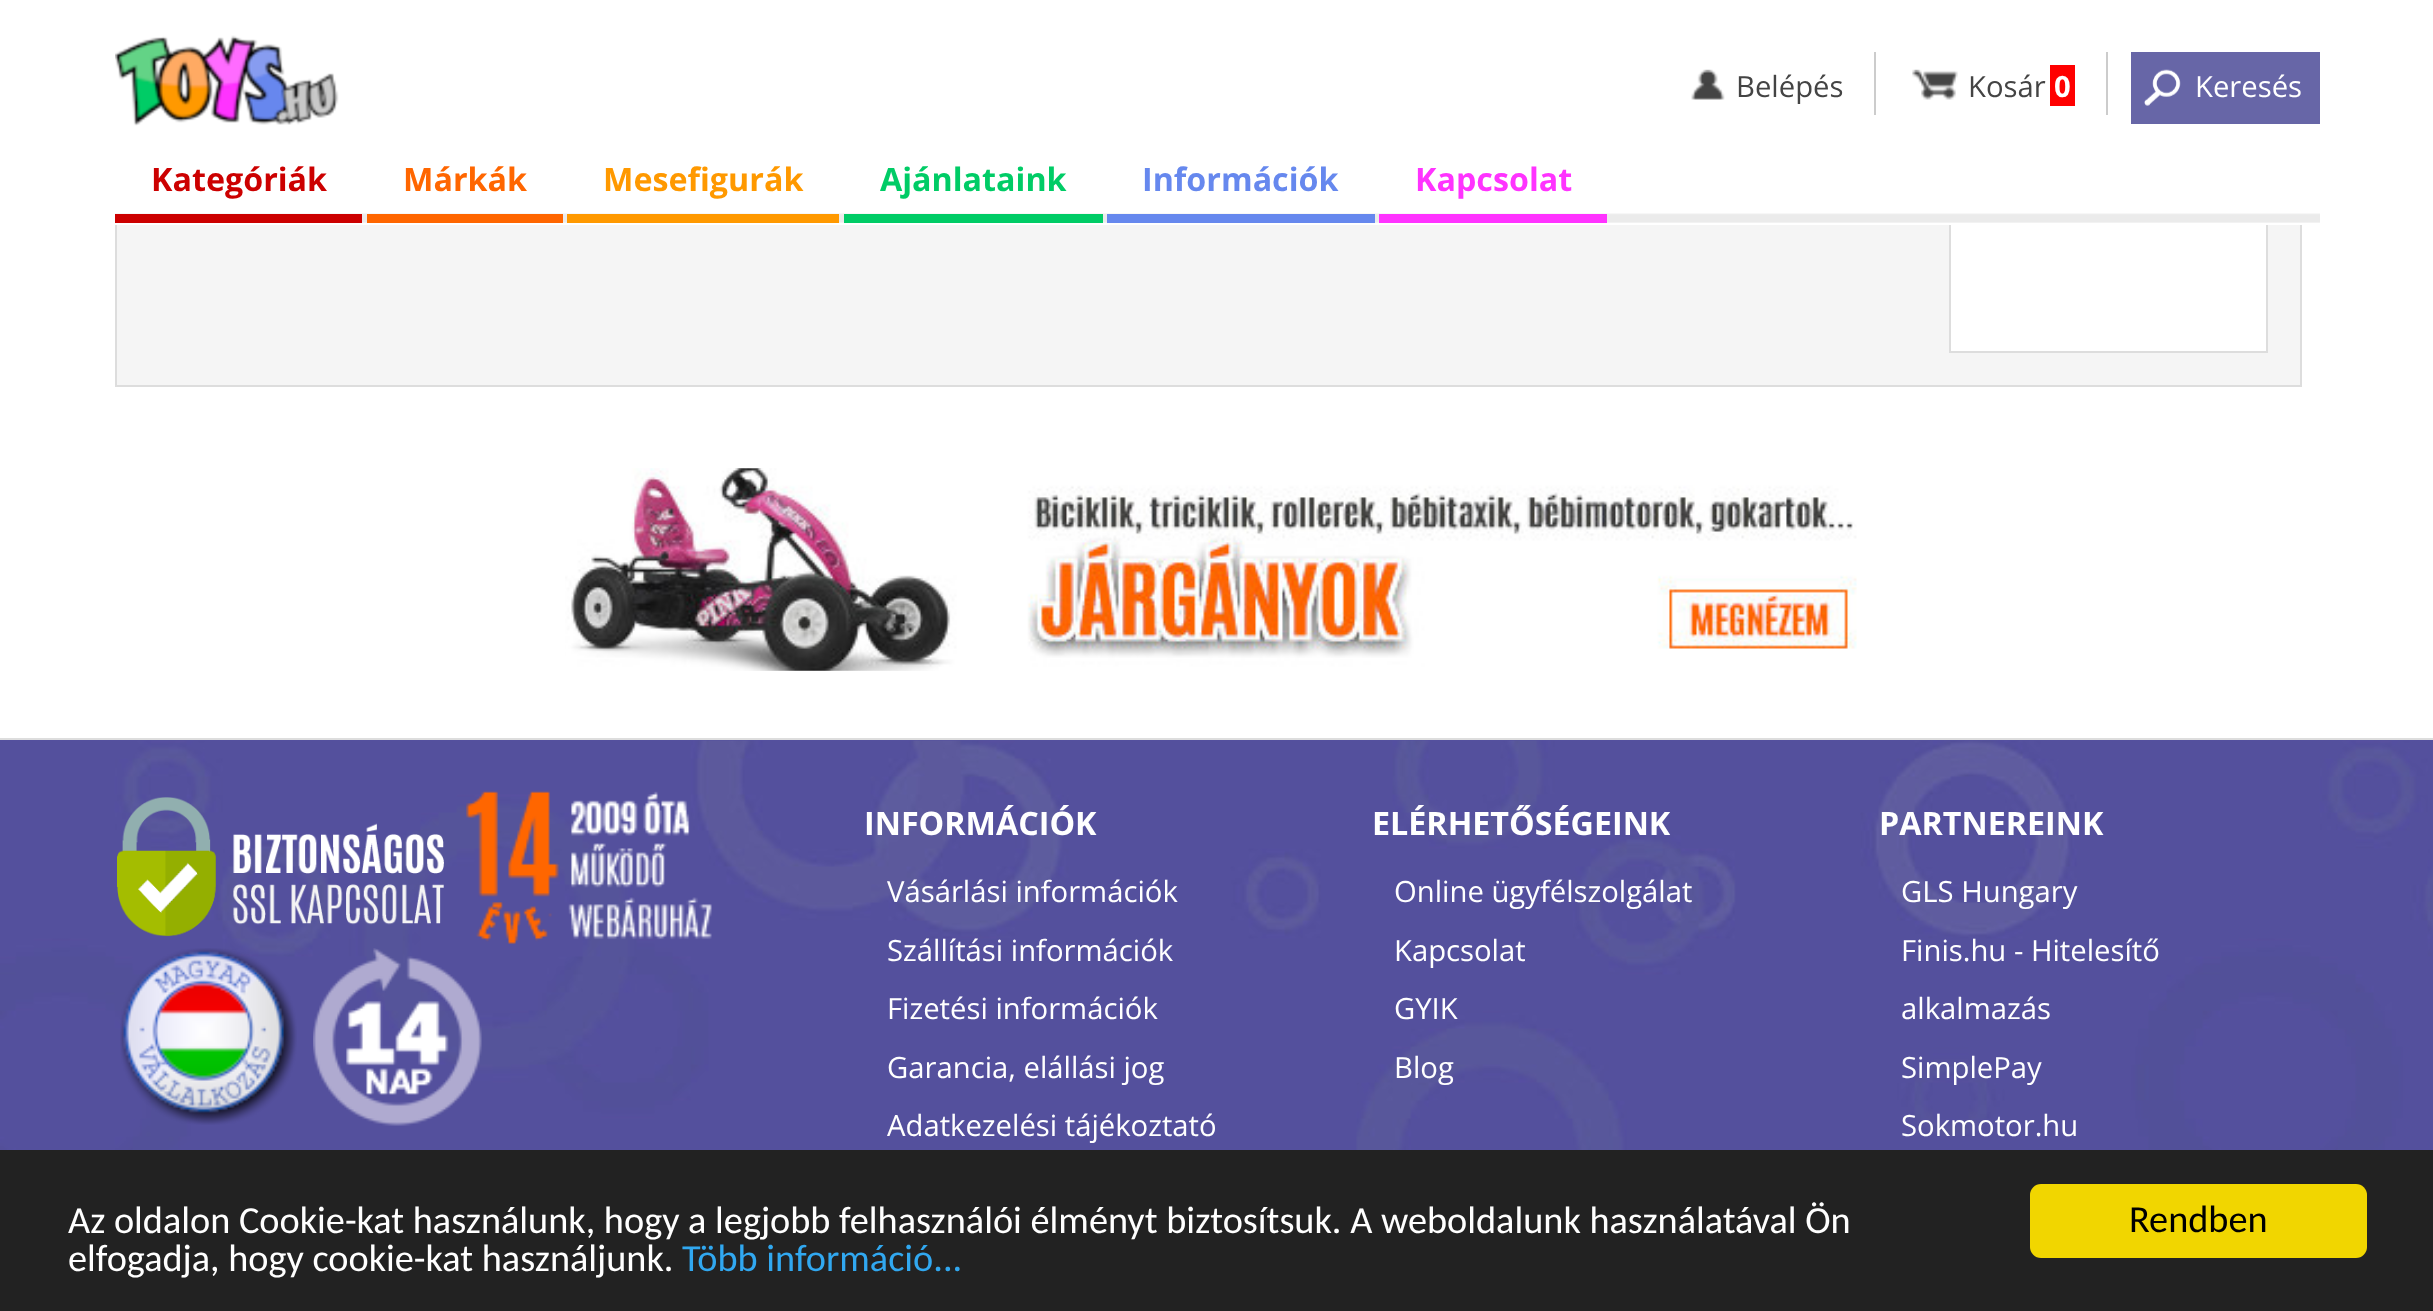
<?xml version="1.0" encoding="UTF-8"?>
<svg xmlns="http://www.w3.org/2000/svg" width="2433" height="1311">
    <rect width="100%" height="100%" fill="#FFFFFF"/>
    <rect x="117" y="225" width="2183" height="160" fill="#F5F5F5"/>
    <rect x="116" y="1" width="2185" height="385" fill="none" stroke="#DDDDDD" stroke-width="2"/>
    <rect x="1951" y="225" width="315" height="126" fill="#FFFFFF"/>
    <rect x="1950" y="35" width="317" height="317" fill="none" stroke="#DDDDDD" stroke-width="2"/>
    <image x="565" y="468" width="1292" height="203" href="img_01.png"/>
    <rect x="115" y="0" width="2187" height="225" fill="#FFFFFF"/>
    <image x="115" y="35" width="224" height="91" href="img_02.png"/>
    <image x="1691" y="69" width="34" height="31" href="img_03.png"/>
    <rect x="1874" y="52" width="2" height="63" fill="#CCCCCC"/>
    <text x="1736" y="97" font-family="Open Sans" font-size="29.25" fill="#444444">Belépés</text>
    <image x="1912" y="69" width="46" height="31" href="img_04.png"/>
    <rect x="2106" y="52" width="2" height="63" fill="#CCCCCC"/>
    <text x="1968" y="97" font-family="Open Sans" font-size="29.25" fill="#444444">Kosár</text>
    <rect x="2050" y="65" width="25" height="41" fill="#FF0000"/>
    <text x="2054" y="97" font-family="Open Sans" font-size="29.25" font-weight="700" fill="#FFFFFF">0</text>
    <rect x="2131" y="52" width="189" height="72" fill="#6766A7"/>
    <image x="2144" y="69" width="37" height="37" href="img_05.png"/>
    <text x="2195" y="97" font-family="Open Sans" font-size="29.25" fill="#FFFFFF">Keresés</text>
    <image x="115" y="213" width="2205" height="10" href="img_06.png"/>
    <rect x="115" y="214" width="247" height="9" fill="#CC0000"/>
    <text x="151" y="191" font-family="Open Sans" font-size="32.25" font-weight="700" fill="#CC0000">Kategóriák</text>
    <rect x="367" y="214" width="196" height="9" fill="#FF6600"/>
    <text x="403" y="191" font-family="Open Sans" font-size="32.25" font-weight="700" fill="#FF6600">Márkák</text>
    <rect x="567" y="214" width="272" height="9" fill="#FF9900"/>
    <text x="603" y="191" font-family="Open Sans" font-size="32.25" font-weight="700" fill="#FF9900">Mesefigurák</text>
    <rect x="844" y="214" width="259" height="9" fill="#00CC66"/>
    <text x="880" y="191" font-family="Open Sans" font-size="32.25" font-weight="700" fill="#00CC66">Ajánlataink</text>
    <rect x="1107" y="214" width="268" height="9" fill="#6688EE"/>
    <text x="1142" y="191" font-family="Open Sans" font-size="32.25" font-weight="700" fill="#6688EE">Információk</text>
    <rect x="1379" y="214" width="228" height="9" fill="#FF33FF"/>
    <text x="1415" y="191" font-family="Open Sans" font-size="32.25" font-weight="700" fill="#FF33FF">Kapcsolat</text>
    <rect x="0" y="740" width="2433" height="1" fill="#55509F"/>
    <image x="0" y="740" width="2433" height="410" href="img_07.png"/>
    <rect x="0" y="738" width="2433" height="2" fill="#DDDDDD"/>
    <image x="117" y="797" width="327" height="140" href="img_08.png"/>
    <image x="466" y="791" width="246" height="153" href="img_09.png"/>
    <image x="120" y="948" width="177" height="177" href="img_10.png"/>
    <image x="313" y="948" width="169" height="178" href="img_11.png"/>
    <text x="864" y="835" font-family="Open Sans" font-size="32.25" font-weight="700" fill="#FFFFFF">INFORMÁCIÓK</text>
    <text x="887" y="902" font-family="Open Sans" font-size="29.25" fill="#FFFFFF">Vásárlási információk</text>
    <text font-family="Open Sans" font-size="29.25" fill="#FFFFFF">
        <tspan x="887" y="961">Szállítási információk</tspan>
        <tspan x="887" y="1019">Fizetési információk</tspan>
    </text>
    <text font-family="Open Sans" font-size="29.25" fill="#FFFFFF">
        <tspan x="887" y="1078">Garancia, elállási jog</tspan>
        <tspan x="887" y="1136">Adatkezelési tájékoztató</tspan>
    </text>
    <text x="1372" y="835" font-family="Open Sans" font-size="32.25" font-weight="700" fill="#FFFFFF">ELÉRHETŐSÉGEINK</text>
    <text x="1394" y="902" font-family="Open Sans" font-size="29.25" fill="#FFFFFF">Online ügyfélszolgálat</text>
    <text font-family="Open Sans" font-size="29.25" fill="#FFFFFF">
        <tspan x="1394" y="961">Kapcsolat</tspan>
        <tspan x="1394" y="1019">GYIK</tspan>
    </text>
    <text x="1394" y="1078" font-family="Open Sans" font-size="29.25" fill="#FFFFFF">Blog</text>
    <text x="1879" y="835" font-family="Open Sans" font-size="32.25" font-weight="700" fill="#FFFFFF">PARTNEREINK</text>
    <text x="1901" y="902" font-family="Open Sans" font-size="29.25" fill="#FFFFFF">GLS Hungary</text>
    <text font-family="Open Sans" font-size="29.25" fill="#FFFFFF">
        <tspan x="1901" y="961">Finis.hu - Hitelesítő</tspan>
        <tspan x="1901" y="1019">alkalmazás</tspan>
    </text>
    <text font-family="Open Sans" font-size="29.25" fill="#FFFFFF">
        <tspan x="1901" y="1078">SimplePay</tspan>
        <tspan x="1901" y="1136">Sokmotor.hu</tspan>
    </text>
    <rect x="0" y="1150" width="2433" height="161" fill="#222222"/>
    <text font-family="Carlito" font-size="38.25" fill="#FFFFFF">
        <tspan x="68" y="1233">Az oldalon Cookie-kat használunk, hogy a legjobb felhasználói élményt biztosítsuk. A weboldalunk használatával Ön</tspan>
        <tspan x="68" y="1271">elfogadja, hogy cookie-kat használjunk.</tspan>
    </text>
    <text x="682" y="1271" font-family="Carlito" font-size="38.25" fill="#31A8F0">Több információ...</text>
    <rect x="2030" y="1184" width="337" height="74" rx="11" fill="#F1D600"/>
    <text x="2129" y="1232" font-family="Carlito" font-size="38.25" fill="#000000">Rendben</text>
</svg>
